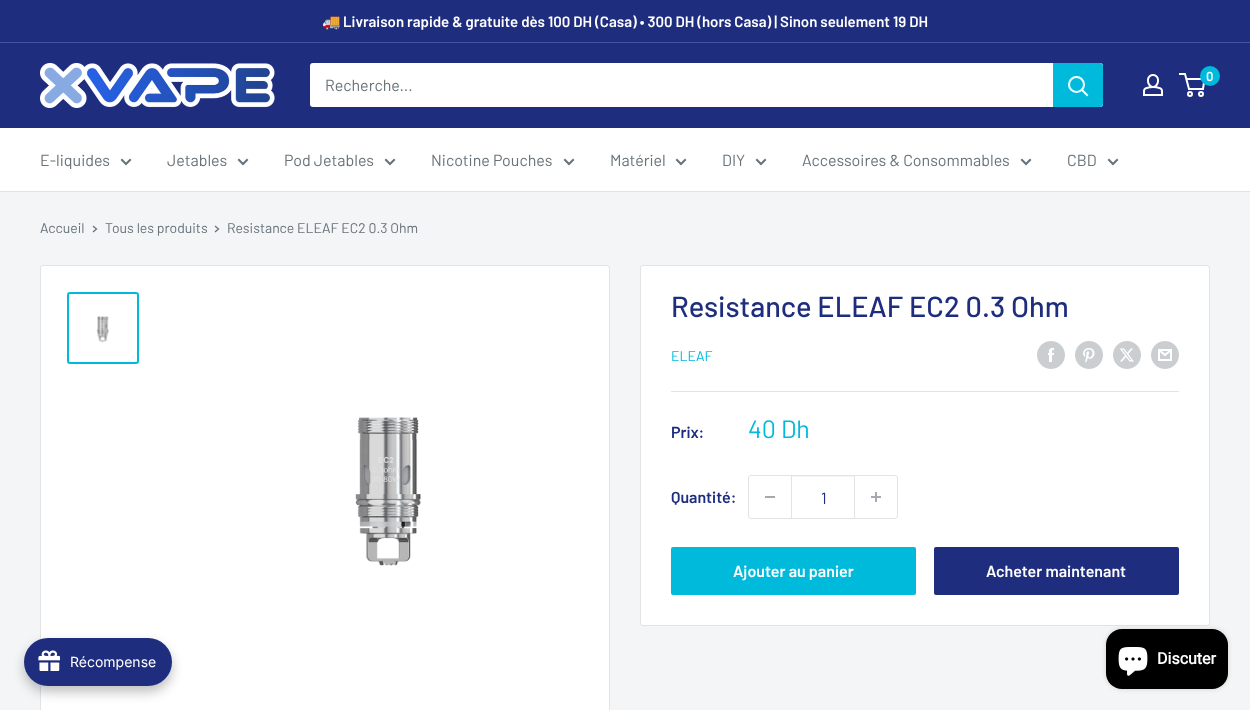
<?xml version="1.0" encoding="UTF-8"?>
<svg xmlns="http://www.w3.org/2000/svg" width="1250" height="710">
    <defs>
        <filter id="blur1" x="-50%" y="-200%" width="200%" height="500%"><feGaussianBlur stdDeviation="6"/></filter>
        <filter id="blur2" x="-50%" y="-200%" width="200%" height="500%"><feGaussianBlur stdDeviation="2.5"/></filter>
    </defs>
    <rect width="100%" height="100%" fill="#F3F5F6"/>
    <rect x="0" y="0" width="1250" height="42" fill="#1E2D7D"/>
    <rect x="0" y="42" width="1250" height="1" fill="#46549F"/>
    <text x="322" y="27" font-family="Noto Color Emoji" font-size="15" font-weight="700" fill="#FFFFFF">🚚</text>
    <text x="343" y="27" font-family="Barlow" font-size="15" font-weight="600" fill="#FFFFFF">Livraison rapide &amp; gratuite dès 100 DH (Casa) • 300 DH (hors Casa) | Sinon seulement 19 DH</text>
    <rect x="0" y="43" width="1250" height="85" fill="#1E2D7D"/>
    <image x="40" y="63" width="235" height="45" href="img_01.png"/>
    <image x="1143" y="74" width="20" height="22" href="img_02.png"/>
    <circle cx="1190" cy="94" r="2" fill="none" stroke="#FFFFFF" stroke-width="2"/>
    <circle cx="1201" cy="94" r="2" fill="none" stroke="#FFFFFF" stroke-width="2"/>
    <path d="M 1186.5 79 H 1204.5 L 1203 89 H 1189 L 1185 74 H 1179" fill="none" stroke="#FFFFFF" stroke-width="2"/>
    <circle cx="1210" cy="76" r="10" fill="#00BADB"/>
    <text x="1206" y="81" font-family="Barlow" font-size="13" font-weight="600" fill="#FFFFFF">0</text>
    <rect x="310" y="63" width="793" height="44" rx="3" fill="#FFFFFF"/>
    <text x="325" y="91" font-family="Barlow" font-size="16" fill="#677279">Recherche...</text>
    <path d="M 1053 63 H 1100 C 1101.5 63 1103 64.5 1103 66 V 104 C 1103 105.5 1101.5 107 1100 107 H 1053 Z" fill="#00BADB"/>
    <path d="M 1087 95 L 1082 90" fill="none" stroke="#FFFFFF" stroke-width="2" stroke-linecap="square"/>
    <circle cx="1076.5" cy="84.5" r="7.5" fill="none" stroke="#FFFFFF" stroke-width="2"/>
    <rect x="0" y="128" width="1250" height="63" fill="#FFFFFF"/>
    <rect x="0" y="191" width="1250" height="1" fill="#E1E3E4"/>
    <text x="40" y="166" font-family="Barlow" font-size="16" fill="#677279">E-liquides</text>
    <path d="M 130 160 L 126 164 L 122 160" fill="none" stroke="#677279" stroke-width="2" stroke-linecap="square"/>
    <text x="167" y="166" font-family="Barlow" font-size="16" fill="#677279">Jetables</text>
    <path d="M 247 160 L 243 164 L 239 160" fill="none" stroke="#677279" stroke-width="2" stroke-linecap="square"/>
    <text x="284" y="166" font-family="Barlow" font-size="16" fill="#677279">Pod Jetables</text>
    <path d="M 394 160 L 390 164 L 386 160" fill="none" stroke="#677279" stroke-width="2" stroke-linecap="square"/>
    <text x="431" y="166" font-family="Barlow" font-size="16" fill="#677279">Nicotine Pouches</text>
    <path d="M 573 160 L 569 164 L 565 160" fill="none" stroke="#677279" stroke-width="2" stroke-linecap="square"/>
    <text x="610" y="166" font-family="Barlow" font-size="16" fill="#677279">Matériel</text>
    <path d="M 685 160 L 681 164 L 677 160" fill="none" stroke="#677279" stroke-width="2" stroke-linecap="square"/>
    <text x="722" y="166" font-family="Barlow" font-size="16" fill="#677279">DIY</text>
    <path d="M 765 160 L 761 164 L 757 160" fill="none" stroke="#677279" stroke-width="2" stroke-linecap="square"/>
    <text x="802" y="166" font-family="Barlow" font-size="16" fill="#677279">Accessoires &amp; Consommables</text>
    <path d="M 1030 160 L 1026 164 L 1022 160" fill="none" stroke="#677279" stroke-width="2" stroke-linecap="square"/>
    <text x="1067" y="166" font-family="Barlow" font-size="16" fill="#677279">CBD</text>
    <path d="M 1117 160 L 1113 164 L 1109 160" fill="none" stroke="#677279" stroke-width="2" stroke-linecap="square"/>
    <text x="40" y="233" font-family="Barlow" font-size="14" fill="#677279">Accueil</text>
    <path d="M 93.5 226.5 L 96.5 229 L 93.5 231.5" fill="none" stroke="#677279" stroke-width="1.3" stroke-linecap="square"/>
    <text x="105" y="233" font-family="Barlow" font-size="14" fill="#677279">Tous les produits</text>
    <path d="M 215.5 226.5 L 218.5 229 L 215.5 231.5" fill="none" stroke="#677279" stroke-width="1.3" stroke-linecap="square"/>
    <text x="227" y="233" font-family="Barlow" font-size="14" fill="#677279">Resistance ELEAF EC2 0.3 Ohm</text>
    <rect x="40.5" y="265.5" width="569" height="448" rx="2.5" fill="#FFFFFF" stroke="#E1E3E4"/>
    <rect x="68" y="293" width="70" height="70" rx="2" fill="none" stroke="#00BADB" stroke-width="2"/>
    <image x="96" y="316" width="13" height="27" href="img_03.png"/>
    <image x="355" y="417" width="66" height="149" href="img_04.png"/>
    <rect x="640.5" y="265.5" width="569" height="360" rx="2.5" fill="#FFFFFF" stroke="#E1E3E4"/>
    <text x="671" y="317" font-family="Barlow" font-size="29" font-weight="500" fill="#1E2D7D">Resistance ELEAF EC2 0.3 Ohm</text>
    <text x="671" y="361" font-family="Barlow" font-size="14" fill="#00BADB">ELEAF</text>
    <image x="1037" y="341" width="28" height="28" href="img_05.png"/>
    <image x="1075" y="341" width="28" height="28" href="img_06.png"/>
    <image x="1113" y="341" width="28" height="28" href="img_07.png"/>
    <image x="1151" y="341" width="28" height="28" href="img_08.png"/>
    <rect x="671" y="391" width="508" height="1" fill="#E1E3E4"/>
    <text x="671" y="438" font-family="Barlow" font-size="16" font-weight="600" fill="#1E2D7D">Prix:</text>
    <text x="748" y="438" font-family="Barlow" font-size="25" fill="#00BADB">40 Dh</text>
    <text x="671" y="503" font-family="Barlow" font-size="16" font-weight="600" fill="#1E2D7D">Quantité:</text>
    <rect x="748.5" y="475.5" width="149" height="43" rx="2.5" fill="none" stroke="#E1E3E4"/>
    <rect x="765" y="496" width="10" height="2" fill="#A4AAAF"/>
    <rect x="792" y="476" width="62" height="1" fill="#F3F4F4"/>
    <rect x="854" y="476" width="1" height="42" fill="#E1E3E4"/>
    <rect x="791" y="476" width="1" height="42" fill="#E1E3E4"/>
    <text x="821" y="504" font-family="Barlow" font-size="16" fill="#1E2D7D">1</text>
    <image x="871" y="492" width="10" height="10" href="img_09.png"/>
    <rect x="671" y="547" width="245" height="48" rx="2" fill="#00BADB"/>
    <text x="733" y="577" font-family="Barlow" font-size="16" font-weight="600" fill="#FFFFFF">Ajouter au panier</text>
    <rect x="934" y="547" width="245" height="48" rx="2" fill="#1E2D7D"/>
    <text x="986" y="577" font-family="Barlow" font-size="16" font-weight="600" fill="#FFFFFF">Acheter maintenant</text>
    <rect x="24" y="644" width="148" height="48" rx="24" fill="#000000" fill-opacity="0.25" filter="url(#blur1)"/>
    <rect x="24" y="638" width="148" height="48" rx="24" fill="#1E2D7D"/>
    <image x="38" y="650" width="22" height="21" href="img_10.png"/>
    <text x="70" y="667" font-family="Inter" font-size="14" fill="#FFFFFF">Récompense</text>
    <rect x="1106" y="629" width="122" height="60" rx="16" fill="#000000" fill-opacity="0.15" filter="url(#blur2)"/>
    <rect x="1106" y="629" width="122" height="60" rx="16" fill="#000000"/>
    <image x="1118" y="647" width="30" height="29" href="img_11.png"/>
    <text x="1157" y="664" font-family="Roboto" font-size="16" font-weight="700" fill="#FFFFFF">Discuter</text>
</svg>
